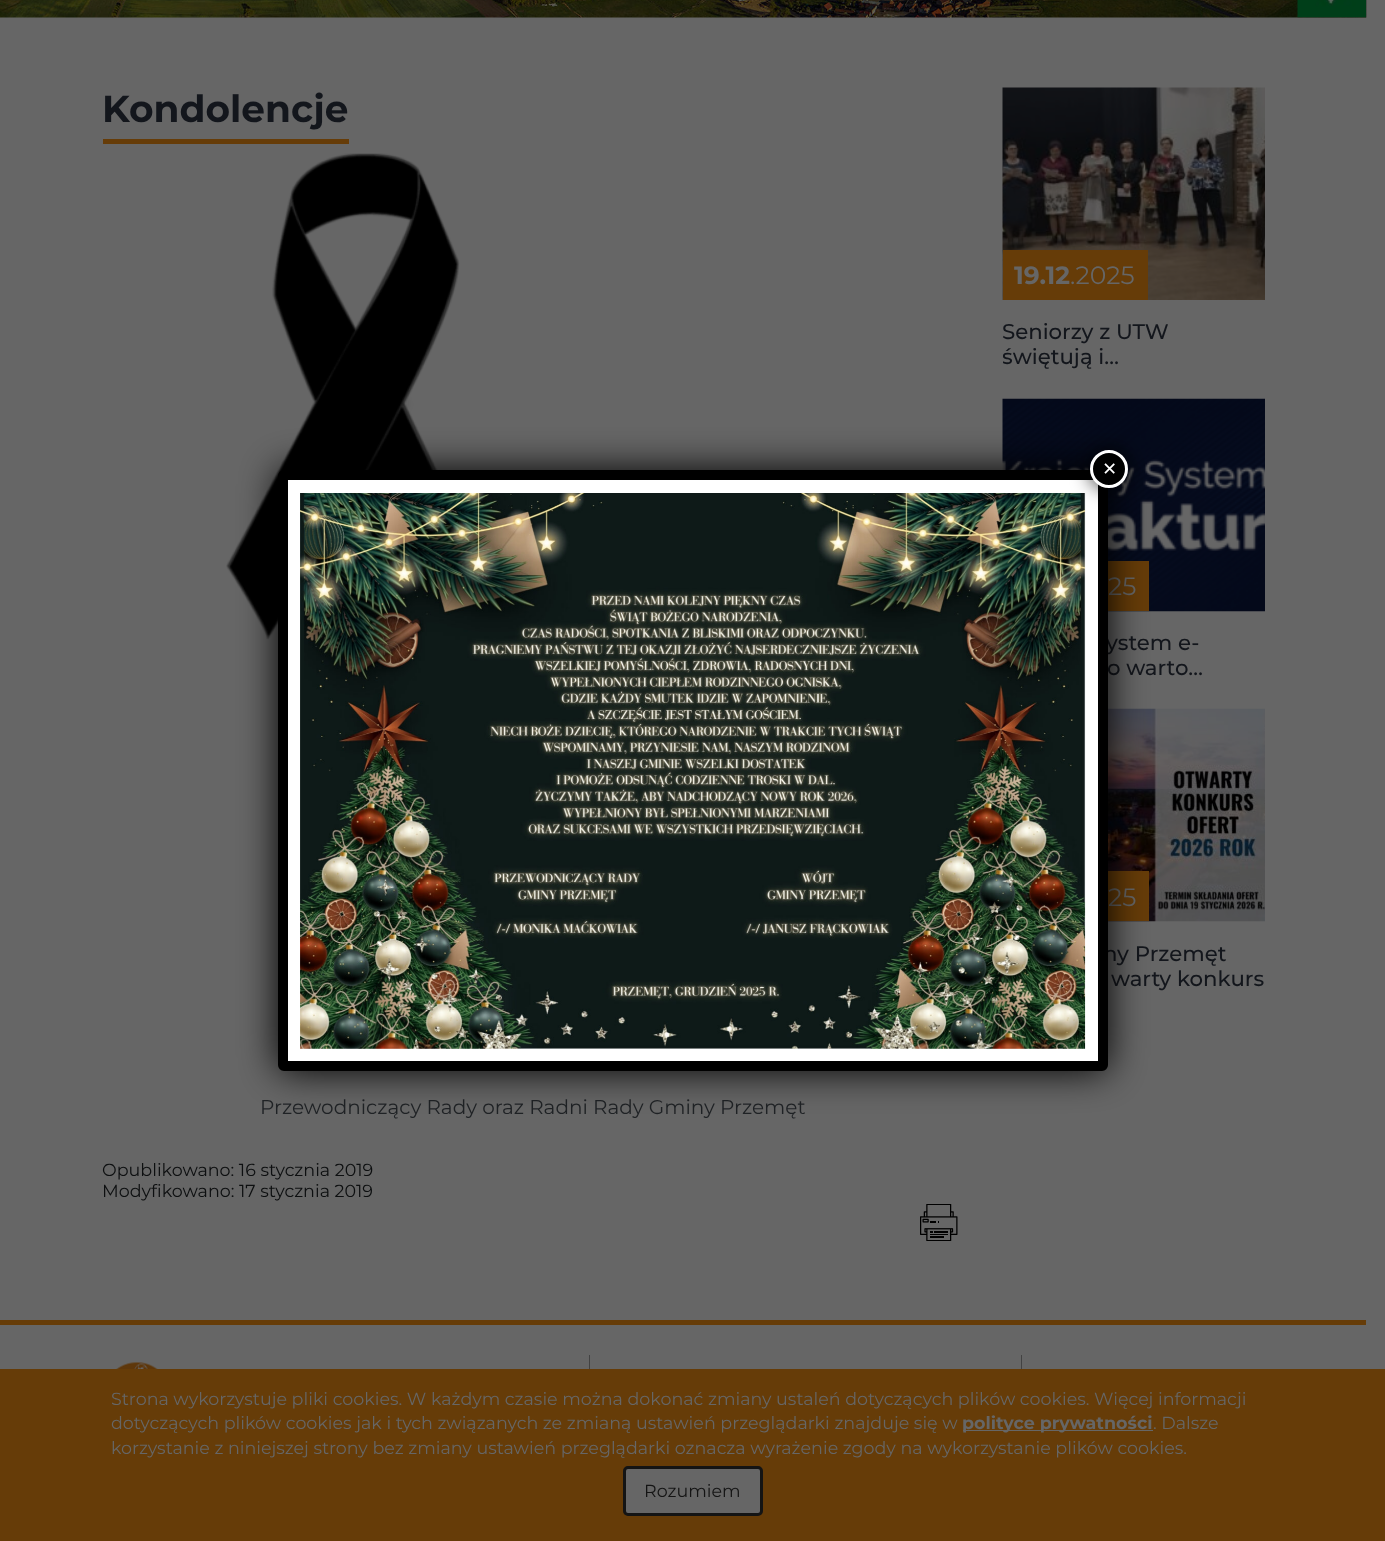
<?xml version="1.0" encoding="UTF-8"?>
<svg xmlns="http://www.w3.org/2000/svg" width="1385" height="1541">
    <defs>
        <clipPath id="clip1"><rect x="1003" y="319" width="262" height="51"/></clipPath>
        <filter id="blur1" x="-50%" y="-200%" width="200%" height="500%"><feGaussianBlur stdDeviation="19"/></filter>
        <filter id="blur2" x="-50%" y="-200%" width="200%" height="500%"><feGaussianBlur stdDeviation="9.5"/></filter>
    </defs>
    <rect width="100%" height="100%" fill="#666666"/>
    <image x="0" y="0" width="1367" height="18" href="img_01.png"/>
    <image x="1297" y="0" width="70" height="18" href="img_02.png"/>
    <rect x="103" y="139" width="246" height="5" fill="#663C08"/>
    <text x="102" y="122" font-family="Montserrat" font-size="37.5" font-weight="700" fill="#13161C">Kondolencje</text>
    <image x="226" y="153" width="234" height="487" href="img_03.png"/>
    <text x="260" y="1114" font-family="Montserrat" font-size="20" font-weight="100" fill="#1F2225">Przewodniczący Rady oraz Radni Rady Gminy Przemęt</text>
    <text font-family="Montserrat" font-size="17.5" font-weight="100" fill="#0D0F10">
        <tspan x="102" y="1176">Opublikowano: 16 stycznia 2019</tspan>
        <tspan x="102" y="1197">Modyfikowano: 17 stycznia 2019</tspan>
    </text>
    <image x="920" y="1204" width="38" height="37" href="img_04.png"/>
    <image x="1002" y="87" width="263" height="213" href="img_05.png"/>
    <rect x="1003" y="250" width="145" height="50" fill="#663C08"/>
    <text x="1014" y="284" font-family="Montserrat" font-size="25" font-weight="700" fill="#666666">19.12</text>
    <text x="1070" y="284" font-family="Montserrat" font-size="25" font-weight="100" fill="#666666">.2025</text>
    <text x="1002" y="339" font-family="Montserrat" font-size="21.25" font-weight="500" fill="#13161C">Seniorzy z UTW</text>
    <g clip-path="url(#clip1)">
        <text x="1002" y="364" font-family="Montserrat" font-size="21.25" font-weight="500" fill="#13161C">świętują i…</text>
    </g>
    <image x="1002" y="398" width="263" height="214" href="img_06.png"/>
    <rect x="1108" y="561" width="41" height="50" fill="#663C08"/>
    <text x="1108" y="595" font-family="Montserrat" font-size="25" font-weight="100" fill="#666666">25</text>
    <text x="1106" y="650" font-family="Montserrat" font-size="21.25" font-weight="500" fill="#13161C">ystem e-</text>
    <text x="1107" y="675" font-family="Montserrat" font-size="21.25" font-weight="500" fill="#13161C">o warto…</text>
    <image x="1108" y="708" width="157" height="214" href="img_07.png"/>
    <rect x="1108" y="871" width="41" height="50" fill="#663C08"/>
    <text x="1108" y="906" font-family="Montserrat" font-size="25" font-weight="100" fill="#666666">25</text>
    <text x="1103" y="961" font-family="Montserrat" font-size="21.25" font-weight="500" fill="#13161C">ny Przemęt</text>
    <text x="1111" y="986" font-family="Montserrat" font-size="21.25" font-weight="500" fill="#13161C">warty konkurs</text>
    <rect x="278" y="470" width="830" height="601" rx="6" fill="#020202" filter="url(#blur1)"/>
    <rect x="283" y="475" width="820" height="591" rx="1" fill="#FFFFFF" stroke="#000000" stroke-width="10"/>
    <image x="300" y="493" width="786" height="556" href="img_08.png"/>
    <rect x="1089" y="449" width="40" height="40" rx="20" fill="#020202" fill-opacity="0.75" filter="url(#blur2)"/>
    <circle cx="1109" cy="469" r="17.5" fill="#000000" stroke="#FFFFFF" stroke-width="3"/>
    <text x="1101" y="479" font-family="Montserrat" font-size="30" font-weight="100" fill="#FFFFFF">×</text>
    <rect x="0" y="1320" width="1366" height="5" fill="#663C08"/>
    <image x="116" y="1362" width="42" height="7" href="img_09.png"/>
    <rect x="589" y="1355" width="1" height="14" fill="#424242"/>
    <rect x="1021" y="1355" width="1" height="14" fill="#424242"/>
    <rect x="0" y="1369" width="1385" height="172" fill="#663C08"/>
    <text font-family="Montserrat" font-size="17.5" font-weight="100" fill="#666666">
        <tspan x="111" y="1405">Strona wykorzystuje pliki cookies. W każdym czasie można dokonać zmiany ustaleń dotyczących plików cookies. Więcej informacji</tspan>
        <tspan x="111" y="1429">dotyczących plików cookies jak i tych związanych ze zmianą ustawień przeglądarki znajduje się w</tspan>
    </text>
    <rect x="963" y="1430" width="190" height="1" fill="#666666"/>
    <text x="962" y="1429" font-family="Montserrat" font-size="17.5" font-weight="700" fill="#666666">polityce prywatności</text>
    <text x="1153" y="1429" font-family="Montserrat" font-size="17.5" font-weight="100" fill="#666666">. Dalsze</text>
    <text x="111" y="1454" font-family="Montserrat" font-size="17.5" font-weight="100" fill="#666666">korzystanie z niniejszej strony bez zmiany ustawień przeglądarki oznacza wyrażenie zgody na wykorzystanie plików cookies.</text>
    <rect x="624.5" y="1467.5" width="137" height="47" rx="3.5" fill="#666666" stroke="#141414" stroke-width="3"/>
    <text x="644" y="1497" font-family="Montserrat" font-size="17.5" font-weight="100" fill="#141414">Rozumiem</text>
</svg>
